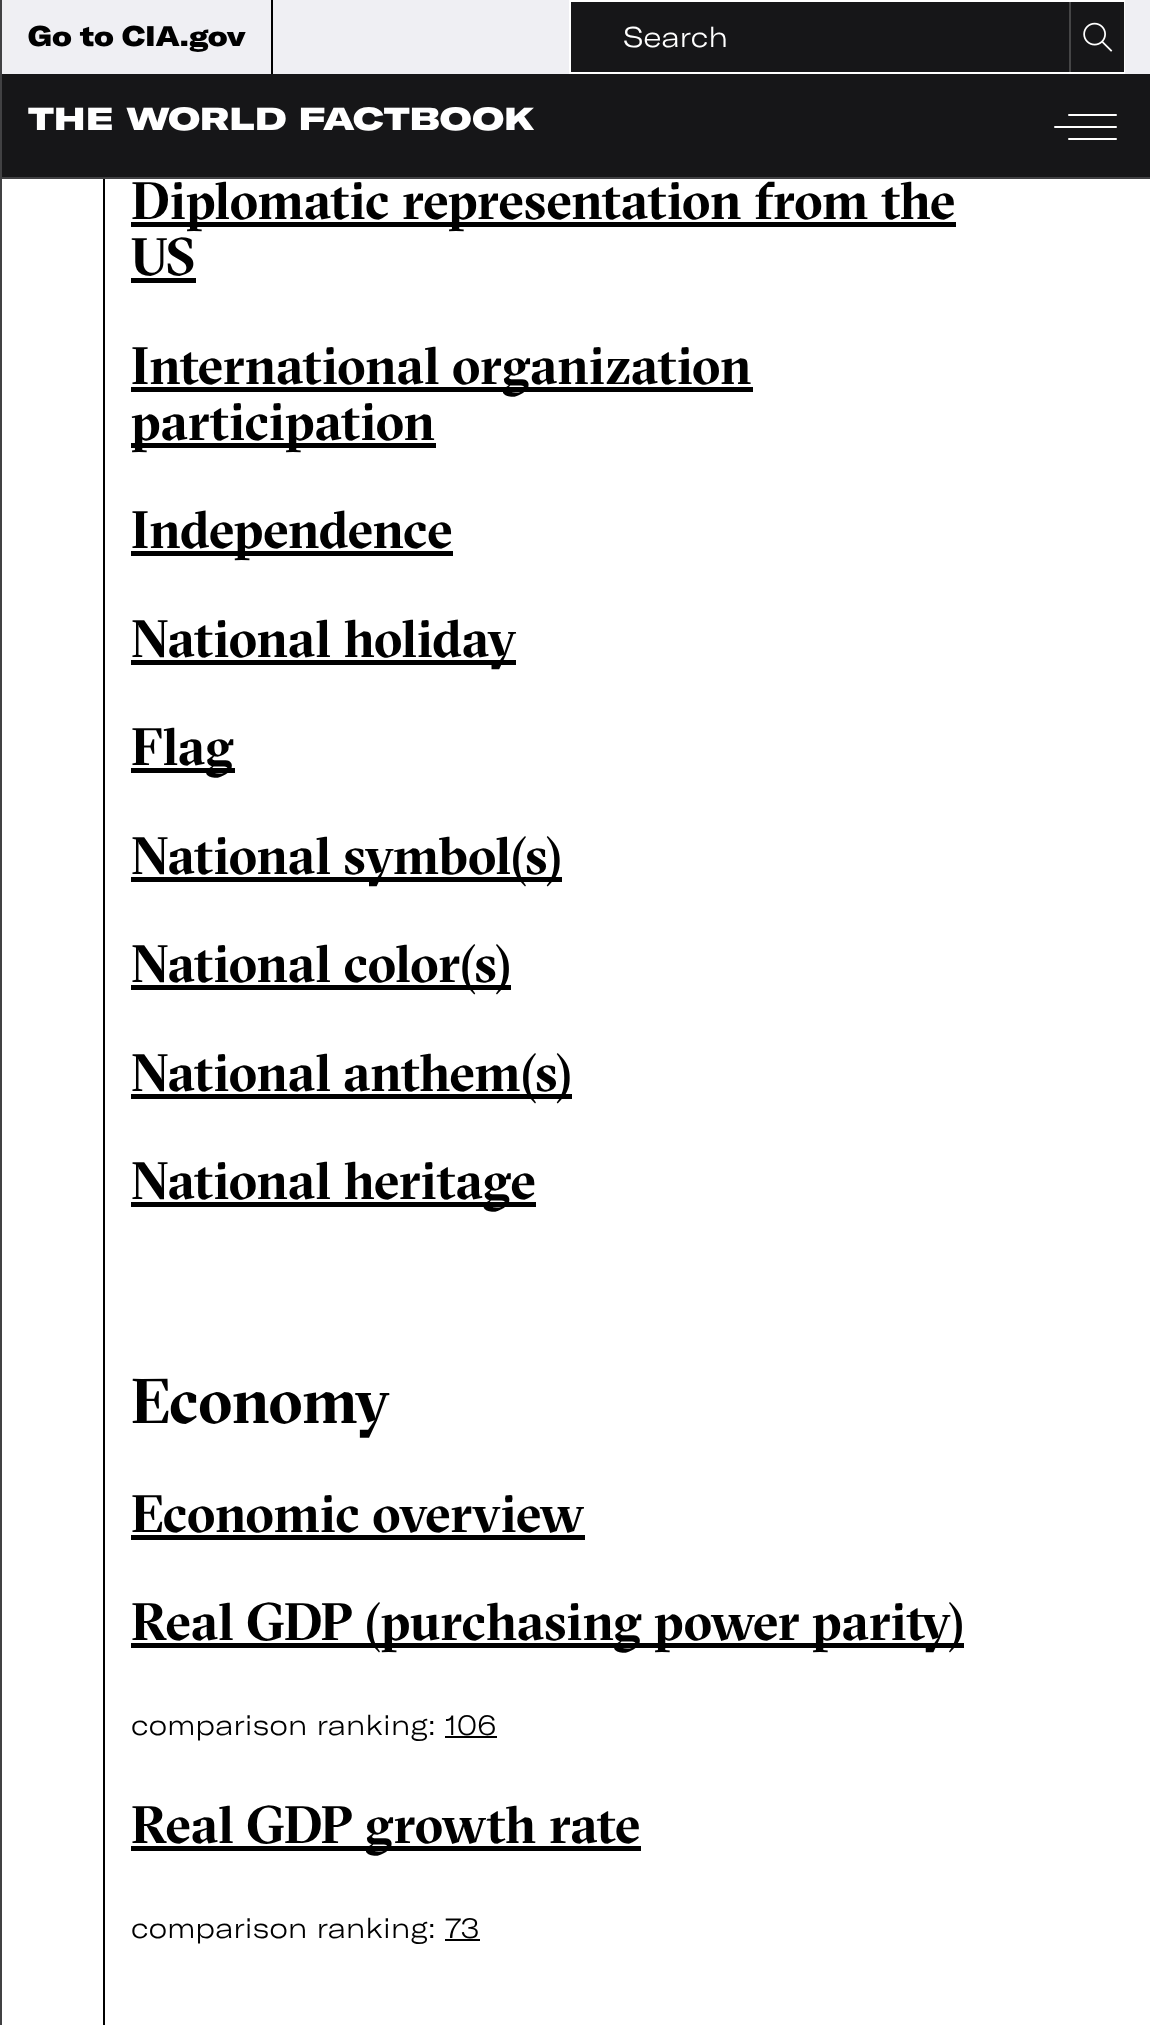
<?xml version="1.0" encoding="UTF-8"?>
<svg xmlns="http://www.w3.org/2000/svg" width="1150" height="2025">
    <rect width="100%" height="100%" fill="#414143"/>
    <rect x="2" y="74" width="1148" height="103" fill="#161618"/>
    <rect x="2" y="0" width="1148" height="74" fill="#EFEFF3"/>
    <rect x="271" y="0" width="2" height="74" fill="#000000"/>
    <text x="28" y="46" font-family="GT America" font-size="28" font-weight="900" fill="#000000">Go to CIA.gov</text>
    <rect x="570" y="1" width="554" height="72" fill="none" stroke="#FFFFFF" stroke-width="2"/>
    <rect x="571" y="2" width="498" height="70" fill="#161618"/>
    <text x="623" y="47" font-family="GT America" font-size="28" font-weight="300" fill="#FFFFFF">Search</text>
    <rect x="1071" y="2" width="53" height="70" fill="#161618"/>
    <rect x="1069" y="2" width="2" height="70" fill="#454546"/>
    <image x="1083" y="22" width="30" height="30" href="img_01.png"/>
    <text x="28" y="130" font-family="'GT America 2'" font-size="31.5" font-weight="900" fill="#FFFFFF">THE WORLD FACTBOOK</text>
    <rect x="1054" y="126" width="63" height="2" rx="1" fill="#FFFFFF"/>
    <rect x="1068" y="114" width="49" height="2" rx="1" fill="#FFFFFF"/>
    <rect x="1068" y="138" width="49" height="2" rx="1" fill="#FFFFFF"/>
    <rect x="2" y="179" width="1148" height="1846" fill="#FFFFFF"/>
    <rect x="103" y="179" width="2" height="1846" fill="#000000"/>
    <rect x="131" y="222" width="825" height="5" fill="#000000"/>
    <text font-family="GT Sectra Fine" font-size="52.5" font-weight="700" fill="#000000">
        <tspan x="131" y="219">Diplomatic representation from the</tspan>
        <tspan x="131" y="275">US</tspan>
    </text>
    <rect x="131" y="278" width="65" height="5" fill="#000000"/>
    <rect x="131" y="387" width="622" height="5" fill="#000000"/>
    <text x="131" y="384" font-family="GT Sectra Fine" font-size="52.5" font-weight="700" fill="#000000">International organization</text>
    <rect x="131" y="443" width="305" height="5" fill="#000000"/>
    <text x="131" y="440" font-family="GT Sectra Fine" font-size="52.5" font-weight="700" fill="#000000">participation</text>
    <rect x="131" y="551" width="322" height="5" fill="#000000"/>
    <text x="131" y="548" font-family="GT Sectra Fine" font-size="52.5" font-weight="700" fill="#000000">Independence</text>
    <rect x="131" y="660" width="385" height="5" fill="#000000"/>
    <text x="131" y="657" font-family="GT Sectra Fine" font-size="52.5" font-weight="700" fill="#000000">National holiday</text>
    <rect x="131" y="768" width="104" height="5" fill="#000000"/>
    <text x="131" y="765" font-family="GT Sectra Fine" font-size="52.5" font-weight="700" fill="#000000">Flag</text>
    <rect x="131" y="877" width="431" height="5" fill="#000000"/>
    <text x="131" y="874" font-family="GT Sectra Fine" font-size="52.5" font-weight="700" fill="#000000">National symbol(s)</text>
    <rect x="131" y="985" width="380" height="5" fill="#000000"/>
    <text x="131" y="982" font-family="GT Sectra Fine" font-size="52.5" font-weight="700" fill="#000000">National color(s)</text>
    <rect x="131" y="1094" width="441" height="5" fill="#000000"/>
    <text x="131" y="1091" font-family="GT Sectra Fine" font-size="52.5" font-weight="700" fill="#000000">National anthem(s)</text>
    <rect x="131" y="1202" width="405" height="5" fill="#000000"/>
    <text x="131" y="1199" font-family="GT Sectra Fine" font-size="52.5" font-weight="700" fill="#000000">National heritage</text>
    <text x="131" y="1423" font-family="GT Sectra Fine" font-size="63" font-weight="700" fill="#000000">Economy</text>
    <text x="131" y="1532" font-family="GT Sectra Fine" font-size="52.5" font-weight="700" fill="#000000">Economic overview</text>
    <rect x="131" y="1535" width="454" height="5" fill="#000000"/>
    <rect x="131" y="1643" width="833" height="5" fill="#000000"/>
    <text x="131" y="1640" font-family="GT Sectra Fine" font-size="52.5" font-weight="700" fill="#000000">Real GDP (purchasing power parity)</text>
    <text x="131" y="1735" font-family="GT America" font-size="28" font-weight="300" fill="#000000">comparison ranking: 106</text>
    <rect x="445" y="1736" width="52" height="2" fill="#000000"/>
    <rect x="131" y="1846" width="510" height="5" fill="#000000"/>
    <text x="131" y="1843" font-family="GT Sectra Fine" font-size="52.5" font-weight="700" fill="#000000">Real GDP growth rate</text>
    <text x="131" y="1938" font-family="GT America" font-size="28" font-weight="300" fill="#000000">comparison ranking: 73</text>
    <rect x="445" y="1939" width="35" height="2" fill="#000000"/>
</svg>
